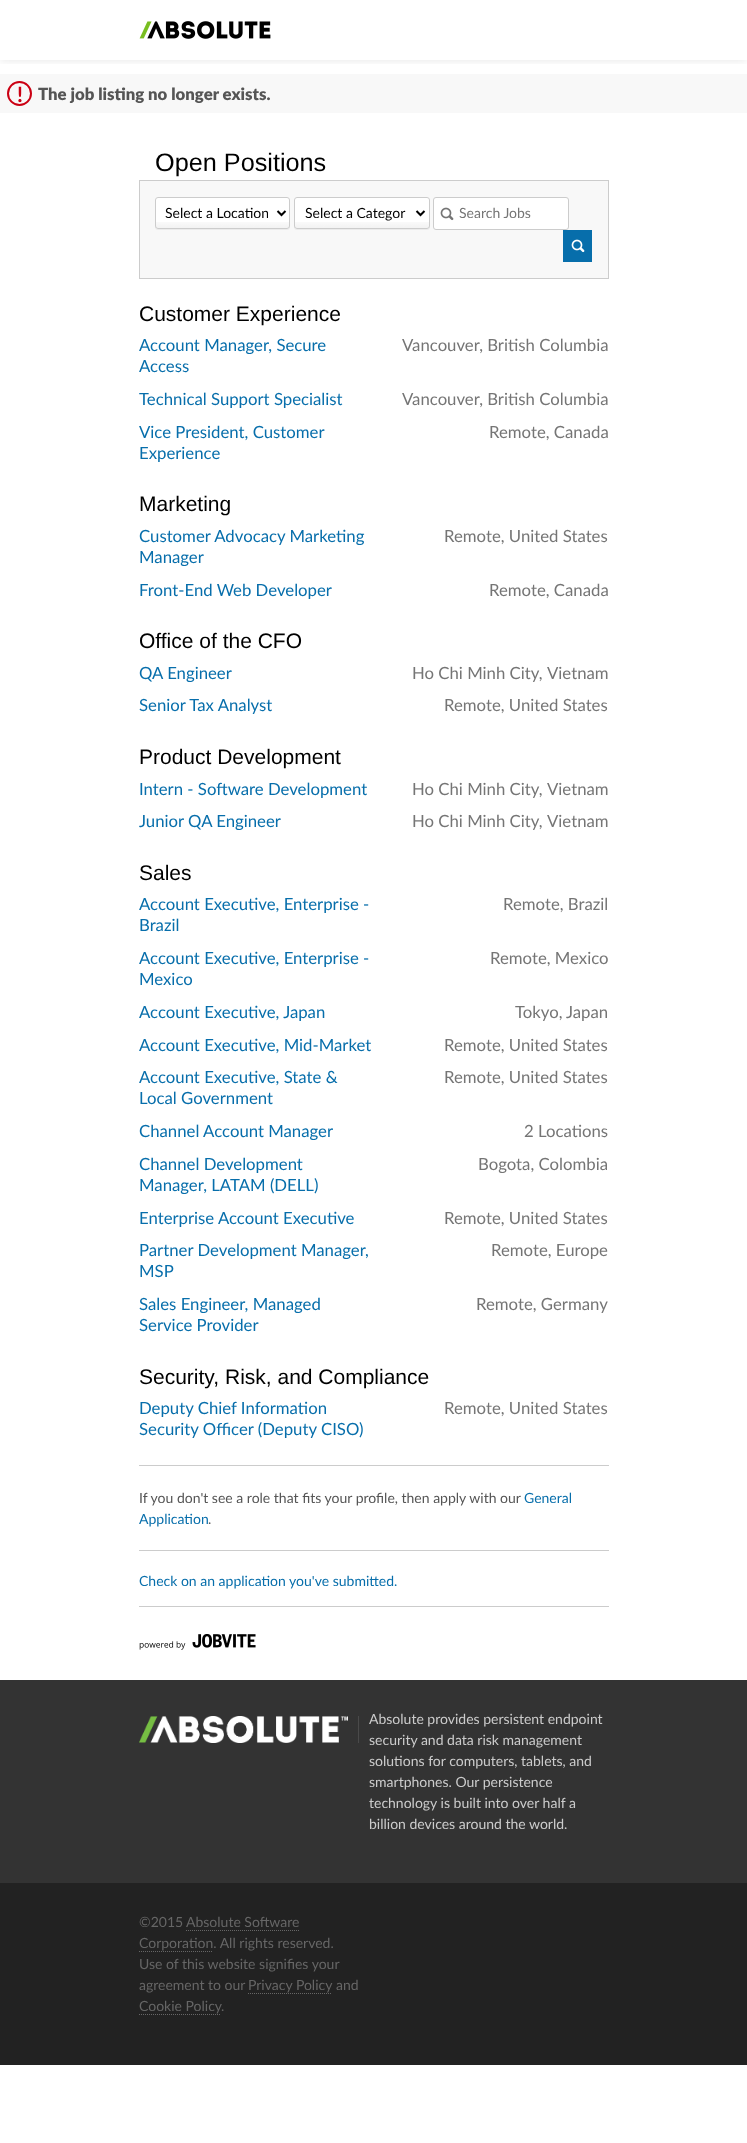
<?xml version="1.0" encoding="UTF-8"?>
<svg xmlns="http://www.w3.org/2000/svg" width="747" height="2143">
    <defs>
        <clipPath id="clip1"><rect x="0" y="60" width="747" height="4"/></clipPath>
        <filter id="blur1" x="-50%" y="-200%" width="200%" height="500%"><feGaussianBlur stdDeviation="5"/></filter>
        <filter id="blur2" x="-50%" y="-200%" width="200%" height="500%"><feGaussianBlur stdDeviation="0.5"/></filter>
        <linearGradient id="g1" gradientUnits="userSpaceOnUse" x1="223" y1="198" x2="223" y2="228"><stop offset="0.65" stop-color="#000000" stop-opacity="0"/><stop offset="1" stop-color="#000000" stop-opacity="0.05"/></linearGradient>
        <clipPath id="clip2"><rect x="165" y="203" width="103" height="19"/></clipPath>
        <linearGradient id="g2" gradientUnits="userSpaceOnUse" x1="362" y1="198" x2="362" y2="228"><stop offset="0.65" stop-color="#000000" stop-opacity="0"/><stop offset="1" stop-color="#000000" stop-opacity="0.05"/></linearGradient>
    </defs>
    <rect width="100%" height="100%" fill="#FFFFFF"/>
    <g clip-path="url(#clip1)">
        <rect x="0" y="0" width="747" height="60" fill="#000000" fill-opacity="0.1" filter="url(#blur1)"/>
    </g>
    <image x="139" y="21" width="132" height="18" href="img_01.png"/>
    <rect x="0" y="74" width="747" height="39" fill="#F8F8F8"/>
    <circle cx="19.5" cy="93.5" r="11.5" fill="none" stroke="#CB0013" stroke-width="2"/>
    <text x="17" y="102" font-family="Lato" font-size="21" font-weight="700" fill="#CB0013">!</text>
    <text x="38" y="100" font-family="Lato" font-size="16.75" font-weight="800" fill="#555555">The job listing no longer exists.</text>
    <text x="155" y="171" font-family="Liberation Sans" font-size="25.25" fill="#000000">Open Positions</text>
    <rect x="139.5" y="180.5" width="469" height="98" fill="#F8F8F8" stroke="#CCCCCC"/>
    <rect x="155" y="198" width="135" height="32" rx="3" fill="#000000" fill-opacity="0.05" filter="url(#blur2)"/>
    <rect x="155" y="197" width="135" height="32" rx="3" fill="#FFFFFF"/>
    <rect x="155" y="222" width="135" height="6" fill="url(#g1)"/>
    <rect x="155.5" y="197.5" width="134" height="31" rx="2.5" fill="none" stroke="#CCCCCC"/>
    <path d="M 277.5 211 L 281.5 215 L 285.5 211" fill="none" stroke="#000000" stroke-width="2"/>
    <g clip-path="url(#clip2)">
        <text x="165" y="218" font-family="Lato" font-size="14" fill="#000000">Select a Location</text>
    </g>
    <rect x="294" y="198" width="136" height="32" rx="3" fill="#000000" fill-opacity="0.05" filter="url(#blur2)"/>
    <rect x="294" y="197" width="136" height="32" rx="3" fill="#FFFFFF"/>
    <rect x="294" y="222" width="136" height="6" fill="url(#g2)"/>
    <rect x="294.5" y="197.5" width="135" height="31" rx="2.5" fill="none" stroke="#CCCCCC"/>
    <path d="M 416.5 211 L 420.5 215 L 424.5 211" fill="none" stroke="#000000" stroke-width="2"/>
    <text x="305" y="218" font-family="Lato" font-size="14" fill="#000000">Select a Categor</text>
    <rect x="433.5" y="197.5" width="135" height="32" rx="2.5" fill="#FFFFFF" stroke="#CCCCCC"/>
    <image x="440" y="207" width="14" height="14" href="img_02.png"/>
    <text x="459" y="218" font-family="Lato" font-size="14" fill="#757575">Search Jobs</text>
    <rect x="563" y="230" width="29" height="32" fill="#076EAB"/>
    <image x="571" y="239" width="14" height="14" href="img_03.png"/>
    <text x="139" y="321" font-family="Liberation Sans" font-size="21" fill="#000000">Customer Experience</text>
    <text font-family="Lato" font-size="16.75" fill="#076EAB">
        <tspan x="139" y="351">Account Manager, Secure</tspan>
        <tspan x="139" y="372">Access</tspan>
    </text>
    <text x="402" y="351" font-family="Lato" font-size="16.75" fill="#757575">Vancouver, British Columbia</text>
    <text x="139" y="405" font-family="Lato" font-size="16.75" fill="#076EAB">Technical Support Specialist</text>
    <text x="402" y="405" font-family="Lato" font-size="16.75" fill="#757575">Vancouver, British Columbia</text>
    <text font-family="Lato" font-size="16.75" fill="#076EAB">
        <tspan x="139" y="438">Vice President, Customer</tspan>
        <tspan x="139" y="459">Experience</tspan>
    </text>
    <text x="489" y="438" font-family="Lato" font-size="16.75" fill="#757575">Remote, Canada</text>
    <text x="139" y="511" font-family="Liberation Sans" font-size="21" fill="#000000">Marketing</text>
    <text font-family="Lato" font-size="16.75" fill="#076EAB">
        <tspan x="139" y="542">Customer Advocacy Marketing</tspan>
        <tspan x="139" y="563">Manager</tspan>
    </text>
    <text x="444" y="542" font-family="Lato" font-size="16.75" fill="#757575">Remote, United States</text>
    <text x="139" y="596" font-family="Lato" font-size="16.75" fill="#076EAB">Front-End Web Developer</text>
    <text x="489" y="596" font-family="Lato" font-size="16.75" fill="#757575">Remote, Canada</text>
    <text x="139" y="648" font-family="Liberation Sans" font-size="21" fill="#000000">Office of the CFO</text>
    <text x="139" y="679" font-family="Lato" font-size="16.75" fill="#076EAB">QA Engineer</text>
    <text x="412" y="679" font-family="Lato" font-size="16.75" fill="#757575">Ho Chi Minh City,</text>
    <text x="547" y="679" font-family="Lato" font-size="16.75" fill="#757575">Vietnam</text>
    <text x="139" y="711" font-family="Lato" font-size="16.75" fill="#076EAB">Senior Tax Analyst</text>
    <text x="444" y="711" font-family="Lato" font-size="16.75" fill="#757575">Remote, United States</text>
    <text x="139" y="764" font-family="Liberation Sans" font-size="21" fill="#000000">Product Development</text>
    <text x="139" y="795" font-family="Lato" font-size="16.75" fill="#076EAB">Intern - Software Development</text>
    <text x="412" y="795" font-family="Lato" font-size="16.75" fill="#757575">Ho Chi Minh City,</text>
    <text x="547" y="795" font-family="Lato" font-size="16.75" fill="#757575">Vietnam</text>
    <text x="139" y="827" font-family="Lato" font-size="16.75" fill="#076EAB">Junior QA Engineer</text>
    <text x="412" y="827" font-family="Lato" font-size="16.75" fill="#757575">Ho Chi Minh City,</text>
    <text x="547" y="827" font-family="Lato" font-size="16.75" fill="#757575">Vietnam</text>
    <text x="139" y="880" font-family="Liberation Sans" font-size="21" fill="#000000">Sales</text>
    <text font-family="Lato" font-size="16.75" fill="#076EAB">
        <tspan x="139" y="910">Account Executive, Enterprise -</tspan>
        <tspan x="139" y="931">Brazil</tspan>
    </text>
    <text x="503" y="910" font-family="Lato" font-size="16.75" fill="#757575">Remote, Brazil</text>
    <text font-family="Lato" font-size="16.75" fill="#076EAB">
        <tspan x="139" y="964">Account Executive, Enterprise -</tspan>
        <tspan x="139" y="985">Mexico</tspan>
    </text>
    <text x="490" y="964" font-family="Lato" font-size="16.75" fill="#757575">Remote, Mexico</text>
    <text x="139" y="1018" font-family="Lato" font-size="16.75" fill="#076EAB">Account Executive, Japan</text>
    <text x="515" y="1018" font-family="Lato" font-size="16.75" fill="#757575">Tokyo,</text>
    <text x="566" y="1018" font-family="Lato" font-size="16.75" fill="#757575">Japan</text>
    <text x="139" y="1051" font-family="Lato" font-size="16.75" fill="#076EAB">Account Executive, Mid-Market</text>
    <text x="444" y="1051" font-family="Lato" font-size="16.75" fill="#757575">Remote, United States</text>
    <text font-family="Lato" font-size="16.75" fill="#076EAB">
        <tspan x="139" y="1083">Account Executive, State &amp;</tspan>
        <tspan x="139" y="1104">Local Government</tspan>
    </text>
    <text x="444" y="1083" font-family="Lato" font-size="16.75" fill="#757575">Remote, United States</text>
    <text x="139" y="1137" font-family="Lato" font-size="16.75" fill="#076EAB">Channel Account Manager</text>
    <text x="524" y="1137" font-family="Lato" font-size="16.75" fill="#757575">2 Locations</text>
    <text font-family="Lato" font-size="16.75" fill="#076EAB">
        <tspan x="139" y="1170">Channel Development</tspan>
        <tspan x="139" y="1191">Manager, LATAM (DELL)</tspan>
    </text>
    <text x="478" y="1170" font-family="Lato" font-size="16.75" fill="#757575">Bogota, Colombia</text>
    <text x="139" y="1224" font-family="Lato" font-size="16.75" fill="#076EAB">Enterprise Account Executive</text>
    <text x="444" y="1224" font-family="Lato" font-size="16.75" fill="#757575">Remote, United States</text>
    <text font-family="Lato" font-size="16.75" fill="#076EAB">
        <tspan x="139" y="1256">Partner Development Manager,</tspan>
        <tspan x="139" y="1277">MSP</tspan>
    </text>
    <text x="491" y="1256" font-family="Lato" font-size="16.75" fill="#757575">Remote, Europe</text>
    <text font-family="Lato" font-size="16.75" fill="#076EAB">
        <tspan x="139" y="1310">Sales Engineer, Managed</tspan>
        <tspan x="139" y="1331">Service Provider</tspan>
    </text>
    <text x="476" y="1310" font-family="Lato" font-size="16.75" fill="#757575">Remote, Germany</text>
    <text x="139" y="1384" font-family="Liberation Sans" font-size="21" fill="#000000">Security, Risk, and Compliance</text>
    <text font-family="Lato" font-size="16.75" fill="#076EAB">
        <tspan x="139" y="1414">Deputy Chief Information</tspan>
        <tspan x="139" y="1435">Security Officer (Deputy CISO)</tspan>
    </text>
    <text x="444" y="1414" font-family="Lato" font-size="16.75" fill="#757575">Remote, United States</text>
    <rect x="139" y="1465" width="470" height="1" fill="#CCCCCC"/>
    <text x="139" y="1503" font-family="Lato" font-size="14" fill="#555555">If you don't see a role that fits your profile, then apply with our</text>
    <text x="524" y="1503" font-family="Lato" font-size="14" fill="#076EAB">General</text>
    <text x="139" y="1524" font-family="Lato" font-size="14" fill="#076EAB">Application</text>
    <text x="208" y="1524" font-family="Lato" font-size="14" fill="#555555">.</text>
    <rect x="139" y="1550" width="470" height="1" fill="#CCCCCC"/>
    <text x="139" y="1586" font-family="Lato" font-size="14" fill="#076EAB">Check on an application you've submitted.</text>
    <rect x="139" y="1606" width="470" height="1" fill="#CCCCCC"/>
    <image x="139" y="1634" width="117" height="16" href="img_04.png"/>
    <rect x="0" y="1680" width="747" height="203" fill="#333333"/>
    <rect x="358" y="1716" width="1" height="27" fill="#4A4A4A"/>
    <image x="139" y="1716" width="209" height="27" href="img_05.png"/>
    <text font-family="Lato" font-size="14" fill="#CCCCCC">
        <tspan x="369" y="1724">Absolute provides persistent endpoint</tspan>
        <tspan x="369" y="1745">security and data risk management</tspan>
        <tspan x="369" y="1766">solutions for computers, tablets, and</tspan>
        <tspan x="369" y="1787">smartphones. Our persistence</tspan>
        <tspan x="369" y="1808">technology is built into over half a</tspan>
        <tspan x="369" y="1829">billion devices around the world.</tspan>
    </text>
    <rect x="0" y="1883" width="747" height="182" fill="#222222"/>
    <text x="139" y="1927" font-family="Lato" font-size="14" fill="#666666">©2015</text>
    <text x="186" y="1927" font-family="Lato" font-size="14" fill="#666666">Absolute Software</text>
    <path d="M 186 1930.5 H 299" fill="none" stroke="#666666" stroke-dasharray="1 1"/>
    <text x="139" y="1948" font-family="Lato" font-size="14" fill="#666666">Corporation. All rights reserved.</text>
    <path d="M 139 1951.5 H 213" fill="none" stroke="#666666" stroke-dasharray="1 1"/>
    <text font-family="Lato" font-size="14" fill="#666666">
        <tspan x="139" y="1969">Use of this website signifies your</tspan>
        <tspan x="139" y="1990">agreement to our</tspan>
    </text>
    <text x="248" y="1990" font-family="Lato" font-size="14" fill="#666666">Privacy Policy</text>
    <path d="M 248 1993.5 H 332" fill="none" stroke="#666666" stroke-dasharray="1 1"/>
    <text x="336" y="1990" font-family="Lato" font-size="14" fill="#666666">and</text>
    <text x="139" y="2011" font-family="Lato" font-size="14" fill="#666666">Cookie Policy</text>
    <path d="M 139 2014.5 H 221" fill="none" stroke="#666666" stroke-dasharray="1 1"/>
    <text x="221" y="2011" font-family="Lato" font-size="14" fill="#666666">.</text>
</svg>
